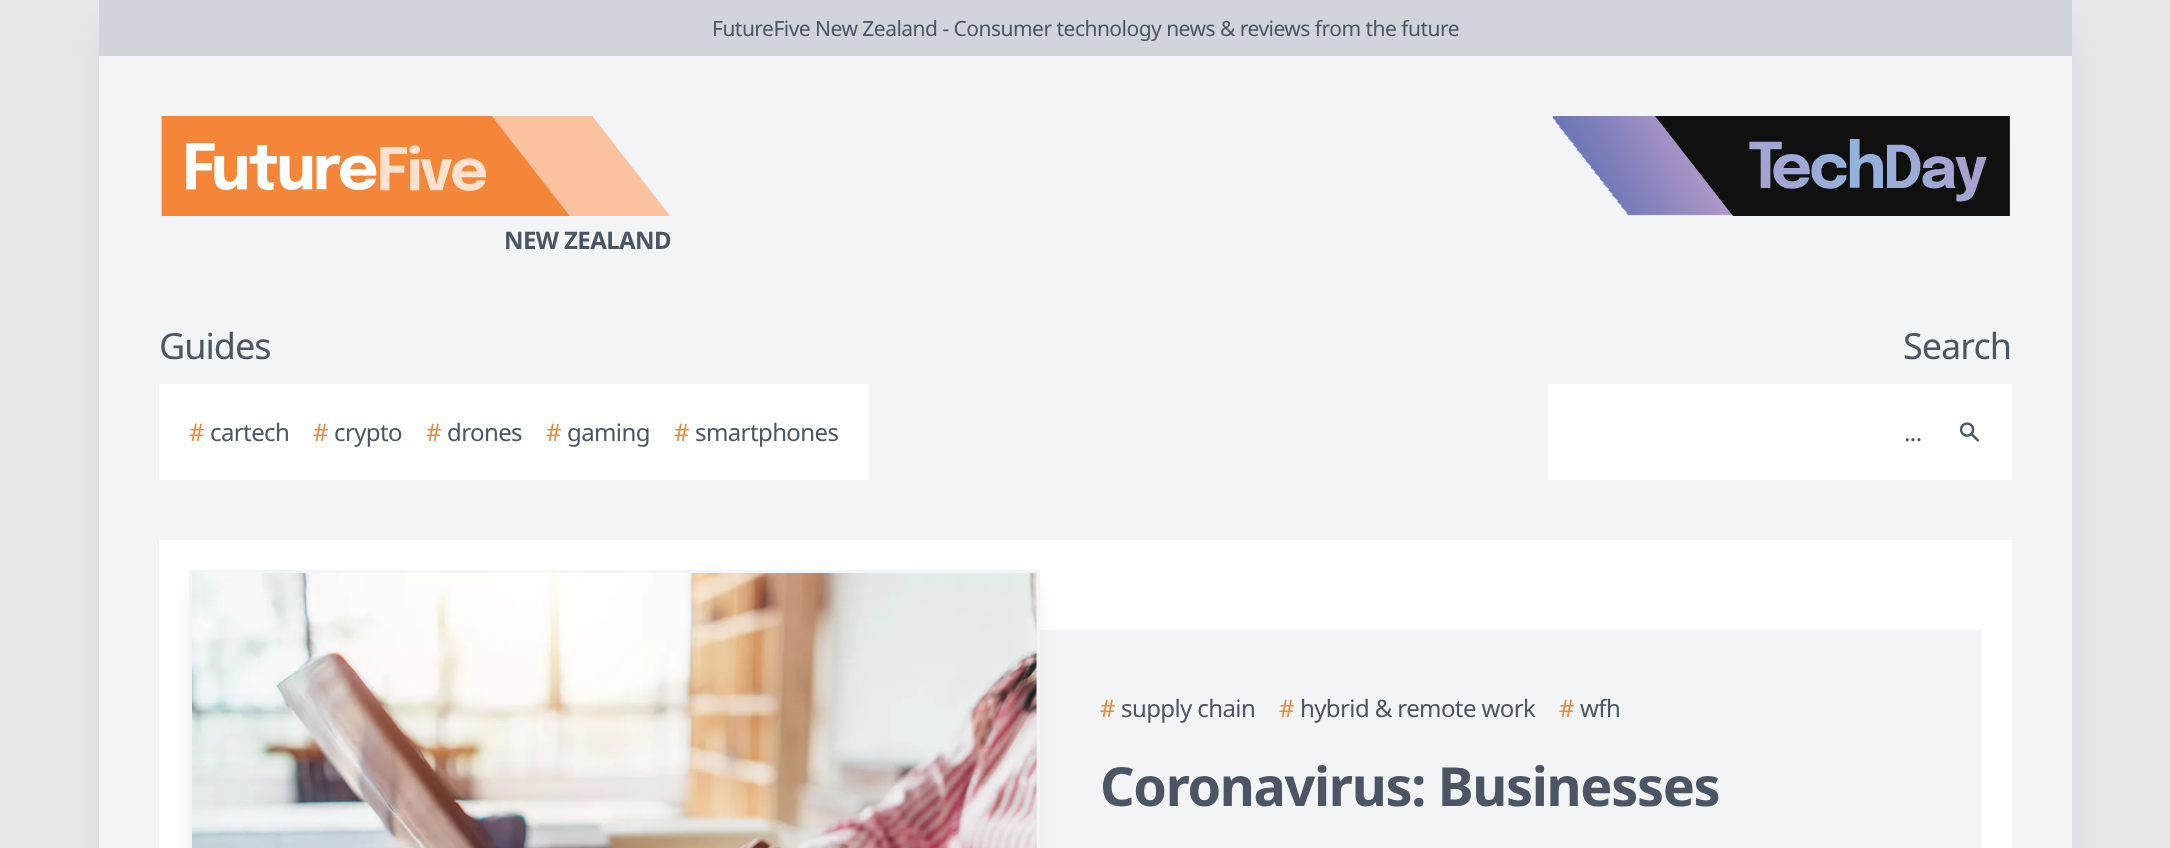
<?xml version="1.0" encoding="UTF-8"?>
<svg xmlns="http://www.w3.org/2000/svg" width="2170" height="848">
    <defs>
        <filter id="blur1" x="-50%" y="-200%" width="200%" height="500%"><feGaussianBlur stdDeviation="19"/></filter>
        <filter id="blur2" x="-50%" y="-200%" width="200%" height="500%"><feGaussianBlur stdDeviation="11"/></filter>
    </defs>
    <rect width="100%" height="100%" fill="#E5E7EB"/>
    <rect x="107" y="38" width="1957" height="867" fill="#000000" fill-opacity="0.1" filter="url(#blur1)"/>
    <rect x="99" y="56" width="1973" height="792" fill="#F3F4F6"/>
    <rect x="99" y="0" width="1973" height="56" fill="#D1D5DB"/>
    <text x="712" y="36" font-family="Noto Sans" font-size="21" letter-spacing="-0.52" fill="#4B5563">FutureFive New Zealand - Consumer technology news &amp; reviews from the future</text>
    <image x="1553" y="116" width="457" height="100" href="img_01.png"/>
    <image x="161" y="116" width="509" height="100" href="img_02.png"/>
    <text x="504" y="249" font-family="Noto Sans" font-size="24" font-weight="700" letter-spacing="-0.6" fill="#4B5563">NEW ZEALAND</text>
    <text x="159" y="359" font-family="Noto Sans" font-size="36" letter-spacing="-1" fill="#4B5563">Guides</text>
    <rect x="159" y="384" width="710" height="96" fill="#FFFFFF"/>
    <text x="189" y="441" font-family="Noto Sans" font-size="24" letter-spacing="-0.6" fill="#F38739">#</text>
    <text x="210" y="441" font-family="Noto Sans" font-size="24" letter-spacing="-0.6" fill="#4B5563">cartech</text>
    <text x="313" y="441" font-family="Noto Sans" font-size="24" letter-spacing="-0.6" fill="#F38739">#</text>
    <text x="334" y="441" font-family="Noto Sans" font-size="24" letter-spacing="-0.6" fill="#4B5563">crypto</text>
    <text x="426" y="441" font-family="Noto Sans" font-size="24" letter-spacing="-0.6" fill="#F38739">#</text>
    <text x="447" y="441" font-family="Noto Sans" font-size="24" letter-spacing="-0.6" fill="#4B5563">drones</text>
    <text x="546" y="441" font-family="Noto Sans" font-size="24" letter-spacing="-0.6" fill="#F38739">#</text>
    <text x="567" y="441" font-family="Noto Sans" font-size="24" letter-spacing="-0.6" fill="#4B5563">gaming</text>
    <text x="674" y="441" font-family="Noto Sans" font-size="24" letter-spacing="-0.6" fill="#F38739">#</text>
    <text x="695" y="441" font-family="Noto Sans" font-size="24" letter-spacing="-0.6" fill="#4B5563">smartphones</text>
    <text x="1903" y="359" font-family="Noto Sans" font-size="36" letter-spacing="-1" fill="#4B5563">Search</text>
    <rect x="1548" y="384" width="464" height="96" fill="#FFFFFF"/>
    <text x="1904" y="441" font-family="Noto Sans" font-size="24" letter-spacing="-0.6" fill="#4B5563">...</text>
    <image x="1959" y="422" width="21" height="20" href="img_03.png"/>
    <rect x="159" y="540" width="1853" height="308" fill="#FFFFFF"/>
    <rect x="1036" y="630" width="946" height="218" fill="#F3F4F6"/>
    <rect x="194" y="590" width="841" height="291" fill="#000000" fill-opacity="0.1" filter="url(#blur2)"/>
    <rect x="190.5" y="571.5" width="848" height="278" fill="none" stroke="#F3F4F6" stroke-width="3"/>
    <image x="192" y="573" width="845" height="275" href="img_04.png"/>
    <text x="1100" y="717" font-family="Noto Sans" font-size="24" letter-spacing="-0.6" fill="#F38739">#</text>
    <text x="1121" y="717" font-family="Noto Sans" font-size="24" letter-spacing="-0.6" fill="#4B5563">supply chain</text>
    <text x="1279" y="717" font-family="Noto Sans" font-size="24" letter-spacing="-0.6" fill="#F38739">#</text>
    <text x="1300" y="717" font-family="Noto Sans" font-size="24" letter-spacing="-0.6" fill="#4B5563">hybrid &amp; remote work</text>
    <text x="1559" y="717" font-family="Noto Sans" font-size="24" letter-spacing="-0.6" fill="#F38739">#</text>
    <text x="1580" y="717" font-family="Noto Sans" font-size="24" letter-spacing="-0.6" fill="#4B5563">wfh</text>
    <text x="1100" y="806" font-family="Noto Sans" font-size="54" font-weight="700" letter-spacing="-1.35" fill="#4B5563">Coronavirus: Businesses</text>
</svg>
